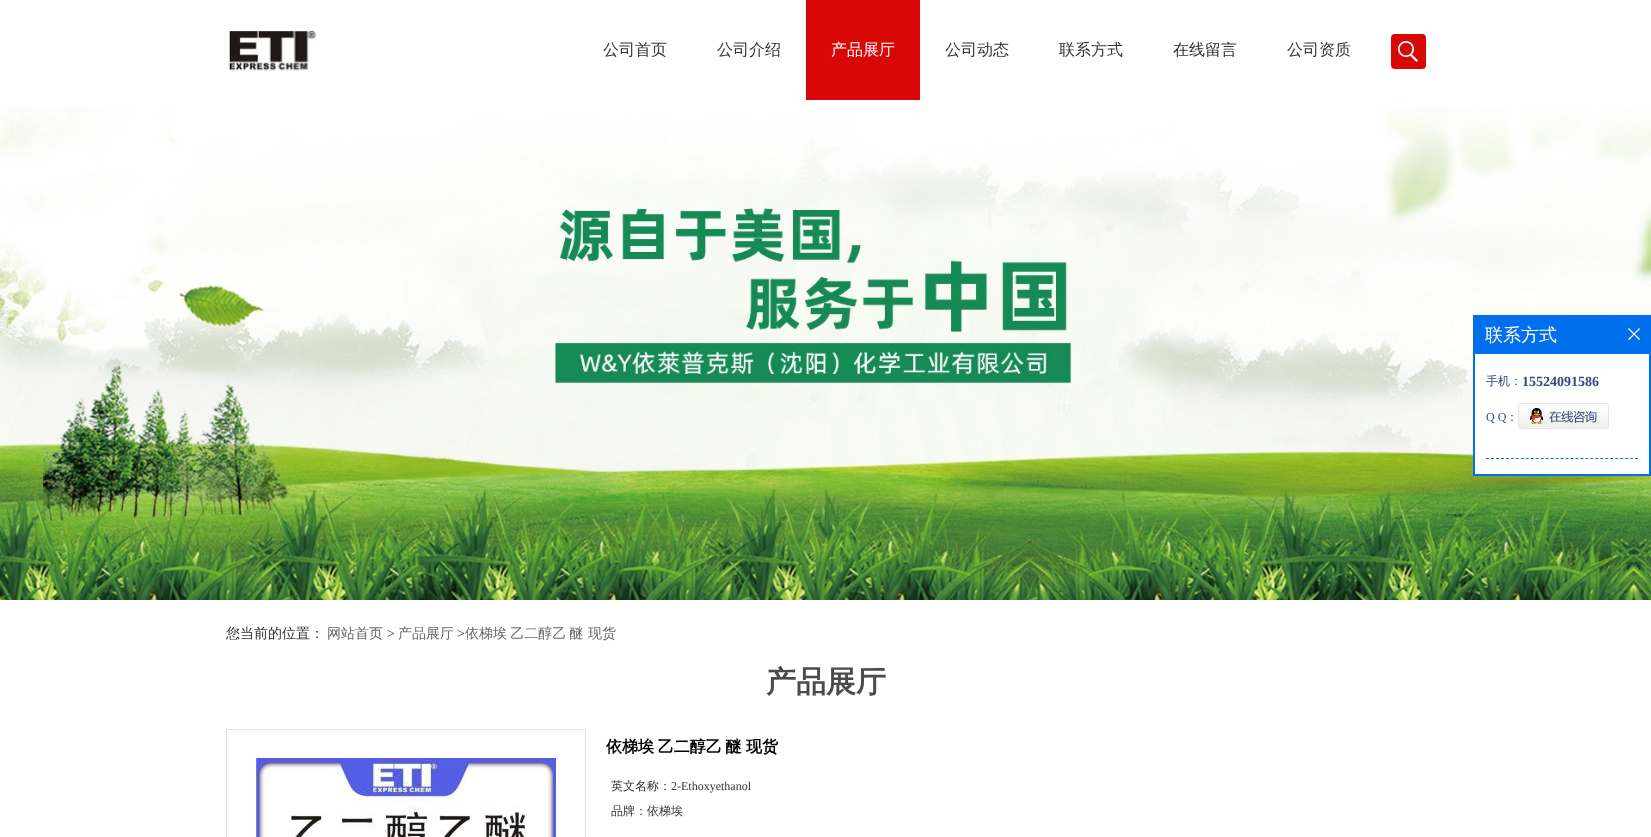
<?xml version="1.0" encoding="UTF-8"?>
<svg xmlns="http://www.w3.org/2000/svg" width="1651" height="837">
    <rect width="100%" height="100%" fill="#FFFFFF"/>
    <image x="229" y="30" width="87" height="41" href="img_01.png"/>
    <text x="603" y="55" font-family="WenQuanYi Zen Hei" font-size="16" font-weight="500" fill="#333333">公司首页</text>
    <text x="717" y="55" font-family="WenQuanYi Zen Hei" font-size="16" font-weight="500" fill="#333333">公司介绍</text>
    <rect x="806" y="0" width="114" height="100" fill="#D80808"/>
    <text x="831" y="55" font-family="WenQuanYi Zen Hei" font-size="16" font-weight="500" fill="#FFFFFF">产品展厅</text>
    <text x="945" y="55" font-family="WenQuanYi Zen Hei" font-size="16" font-weight="500" fill="#333333">公司动态</text>
    <text x="1059" y="55" font-family="WenQuanYi Zen Hei" font-size="16" font-weight="500" fill="#333333">联系方式</text>
    <text x="1173" y="55" font-family="WenQuanYi Zen Hei" font-size="16" font-weight="500" fill="#333333">在线留言</text>
    <text x="1287" y="55" font-family="WenQuanYi Zen Hei" font-size="16" font-weight="500" fill="#333333">公司资质</text>
    <rect x="1391" y="34" width="35" height="35" rx="4" fill="#D80808"/>
    <image x="1398" y="41" width="20" height="21" href="img_02.png"/>
    <image x="0" y="106" width="1651" height="494" href="img_03.png"/>
    <rect x="1473" y="315" width="178" height="161" fill="#006FED"/>
    <text x="1485" y="341" font-family="WenQuanYi Zen Hei" font-size="18" font-weight="500" fill="#FFFFFF">联系方式</text>
    <image x="1628" y="328" width="12" height="12" href="img_04.png"/>
    <rect x="1475" y="354" width="174" height="120" fill="#FFFFFF"/>
    <path d="M 1486 458.5 H 1638" fill="none" stroke="#006FED" stroke-dasharray="3 1.97"/>
    <text x="1486" y="385" font-family="WenQuanYi Zen Hei" font-size="12" font-weight="500" fill="#314985">手机：</text>
    <text x="1522" y="386" font-family="Liberation Serif" font-size="14" font-weight="700" fill="#314985">15524091586</text>
    <text x="1486" y="421" font-family="Liberation Serif" font-size="12" fill="#314985">Q Q</text>
    <text x="1506" y="421" font-family="WenQuanYi Zen Hei" font-size="12" font-weight="500" fill="#314985">：</text>
    <image x="1518" y="403" width="91" height="26" href="img_05.png"/>
    <text x="226" y="638" font-family="WenQuanYi Zen Hei" font-size="14" font-weight="500" fill="#333333">您当前的位置：</text>
    <text x="327" y="638" font-family="WenQuanYi Zen Hei" font-size="14" font-weight="500" fill="#666666">网站首页</text>
    <text x="387" y="638" font-family="Liberation Serif" font-size="14" fill="#333333">&gt;</text>
    <text x="398" y="638" font-family="WenQuanYi Zen Hei" font-size="14" font-weight="500" fill="#666666">产品展厅</text>
    <text x="457" y="638" font-family="Liberation Serif" font-size="14" fill="#333333">&gt;</text>
    <text x="465" y="638" word-spacing="-1" font-family="WenQuanYi Zen Hei" font-size="14" font-weight="500" fill="#666666">依梯埃 乙二醇乙 醚</text>
    <text x="588" y="638" font-family="WenQuanYi Zen Hei" font-size="14" font-weight="500" fill="#666666">现货</text>
    <text x="766" y="692" font-family="WenQuanYi Zen Hei" font-size="30" font-weight="700" fill="#4B4B4B">产品展厅</text>
    <rect x="226.5" y="729.5" width="359" height="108" fill="none" stroke="#E4E4E4"/>
    <image x="256" y="758" width="300" height="79" href="img_06.png"/>
    <text x="606" y="752" word-spacing="-1" font-family="WenQuanYi Zen Hei" font-size="16" font-weight="700" fill="#000000">依梯埃 乙二醇乙 醚</text>
    <text x="746" y="752" font-family="WenQuanYi Zen Hei" font-size="16" font-weight="700" fill="#000000">现货</text>
    <text x="611" y="790" font-family="WenQuanYi Zen Hei" font-size="12" font-weight="500" fill="#333333">英文名称：</text>
    <text x="671" y="790" font-family="Liberation Serif" font-size="12" fill="#333333">2-Ethoxyethanol</text>
    <text x="611" y="815" font-family="WenQuanYi Zen Hei" font-size="12" font-weight="500" fill="#333333">品牌：依梯埃</text>
</svg>
